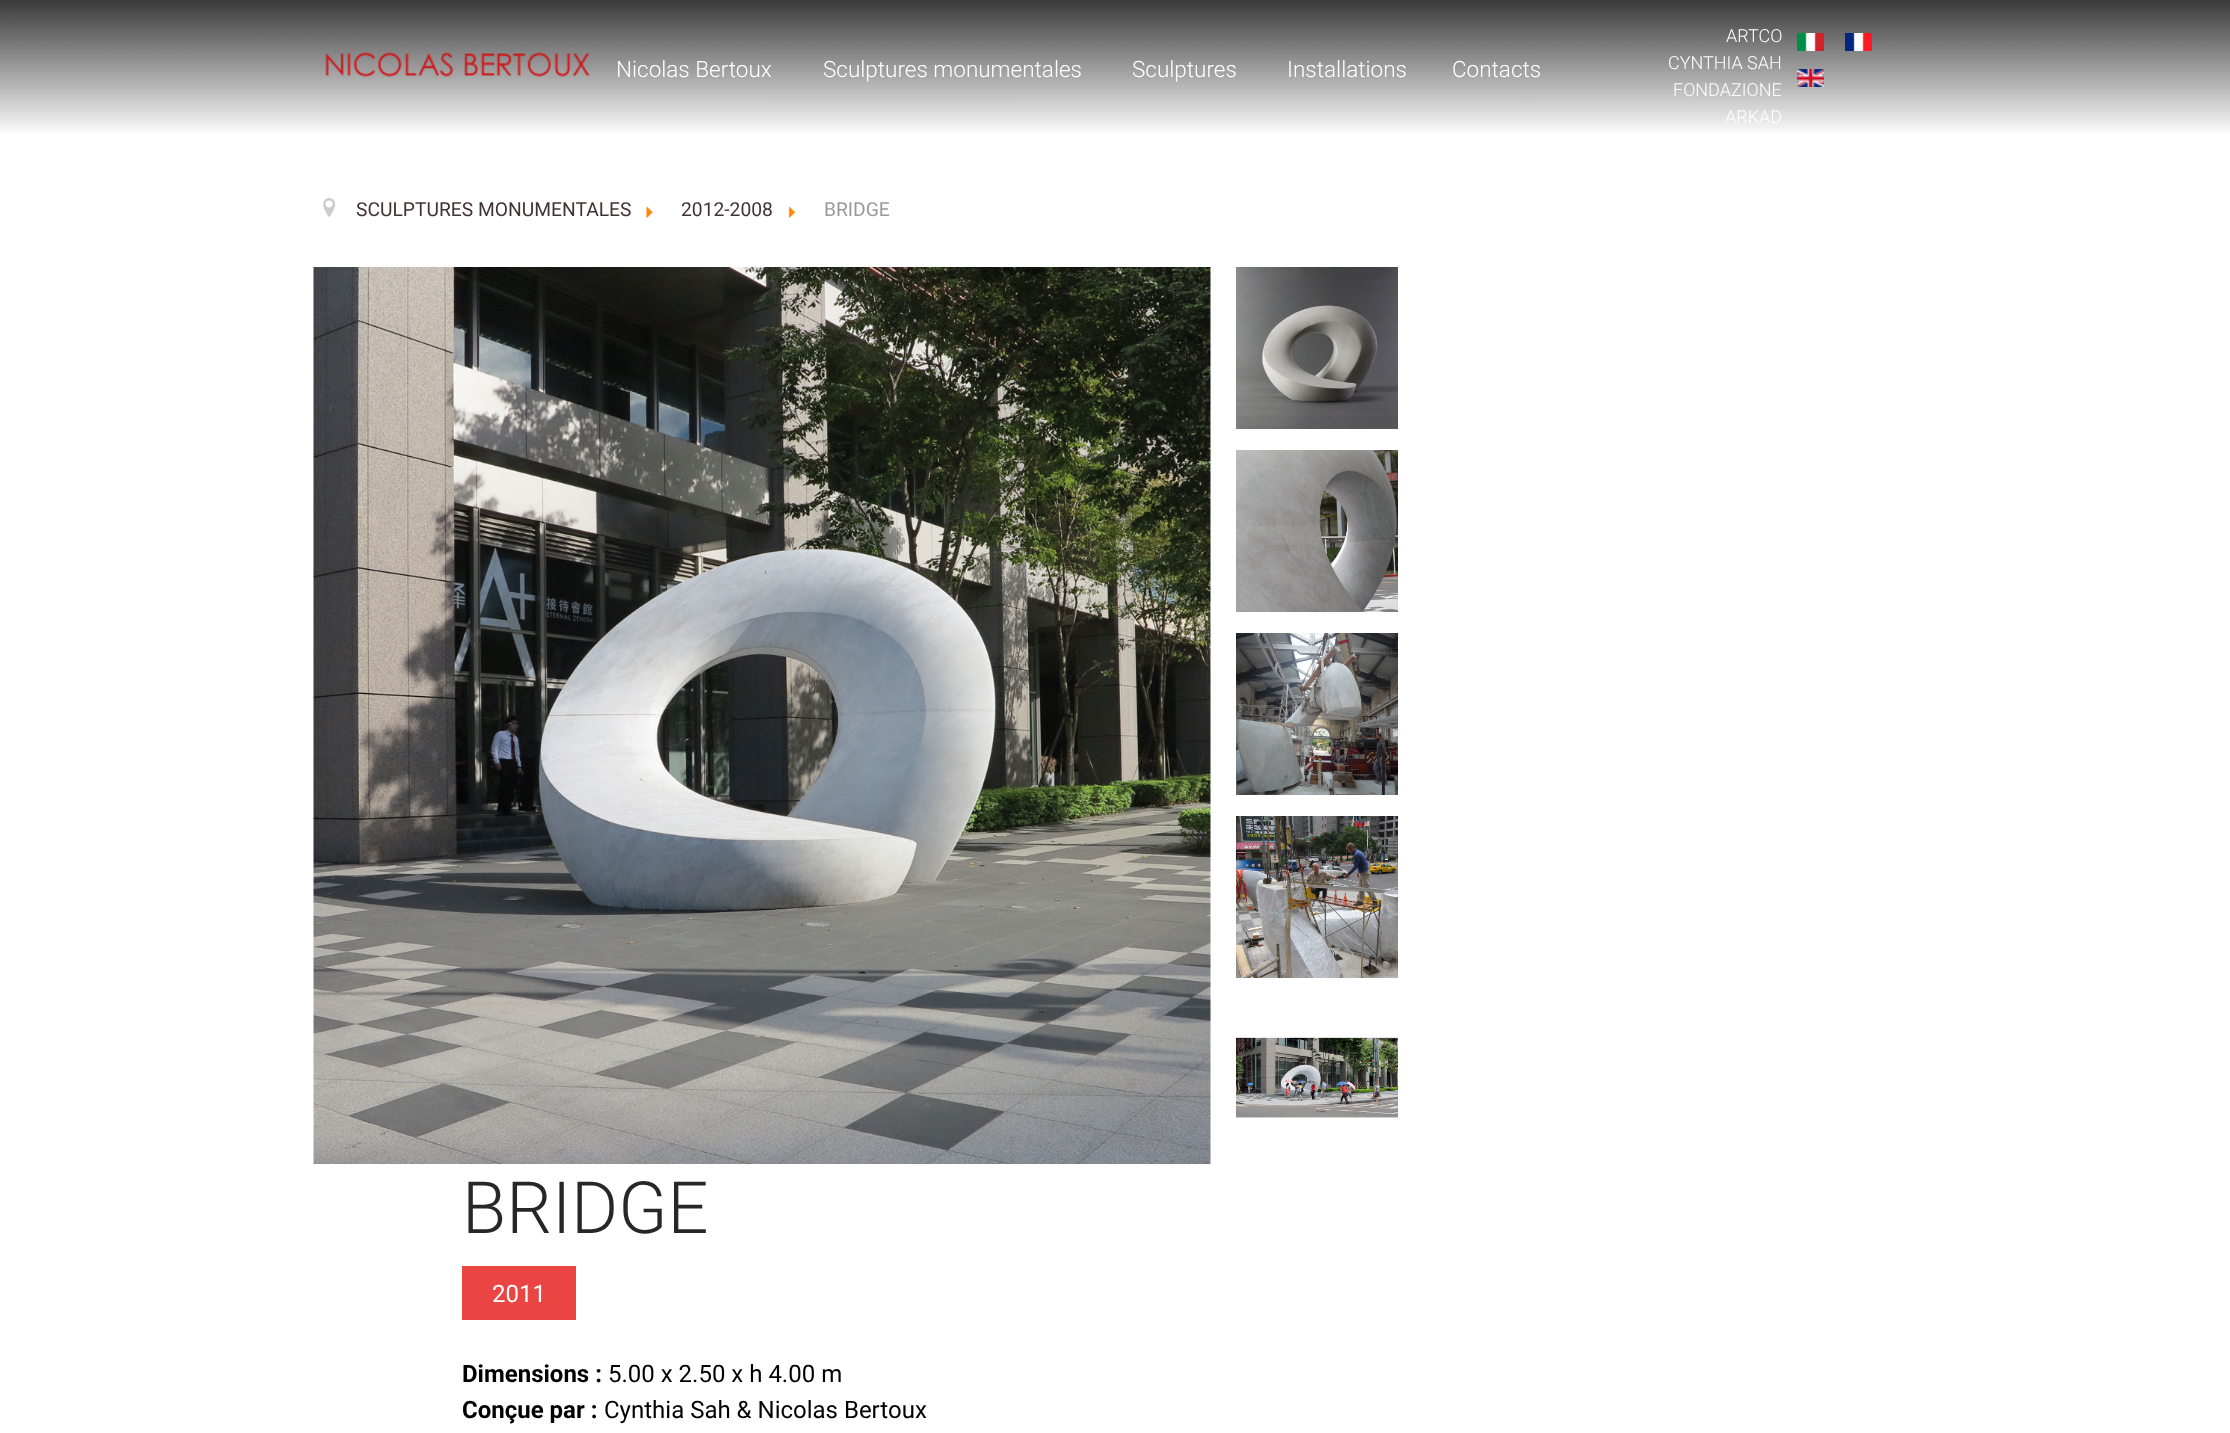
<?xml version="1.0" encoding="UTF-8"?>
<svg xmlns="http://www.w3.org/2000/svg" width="2230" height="1433">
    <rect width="100%" height="100%" fill="#FFFFFF"/>
    <image x="0" y="0" width="2230" height="132" href="img_01.png"/>
    <image x="325" y="52" width="265" height="25" href="img_02.png"/>
    <text x="616" y="77" font-family="Roboto" font-size="22.5" font-weight="300" fill="#FFFFFF">Nicolas Bertoux</text>
    <text x="823" y="77" font-family="Roboto" font-size="22.5" font-weight="300" fill="#FFFFFF">Sculptures monumentales</text>
    <text x="1132" y="77" font-family="Roboto" font-size="22.5" font-weight="300" fill="#FFFFFF">Sculptures</text>
    <text x="1287" y="77" font-family="Roboto" font-size="22.5" font-weight="300" fill="#FFFFFF">Installations</text>
    <text x="1452" y="77" font-family="Roboto" font-size="22.5" font-weight="300" fill="#FFFFFF">Contacts</text>
    <text x="1726" y="42" font-family="Roboto" font-size="18" font-weight="300" fill="#FFFFFF">ARTCO</text>
    <text x="1668" y="69" font-family="Roboto" font-size="18" font-weight="300" fill="#FFFFFF">CYNTHIA SAH</text>
    <text x="1673" y="96" font-family="Roboto" font-size="18" font-weight="300" fill="#FFFFFF">FONDAZIONE</text>
    <text x="1725" y="123" font-family="Roboto" font-size="18" font-weight="300" fill="#FFFFFF">ARKAD</text>
    <image x="1797" y="33" width="27" height="18" href="img_03.png"/>
    <image x="1845" y="33" width="27" height="18" href="img_04.png"/>
    <image x="1797" y="69" width="27" height="18" href="img_05.png"/>
    <image x="323" y="198" width="12" height="19" href="img_06.png"/>
    <text x="356" y="216" font-family="Roboto" font-size="19.25" fill="#423333">SCULPTURES MONUMENTALES</text>
    <image x="646" y="206" width="7" height="12" href="img_07.png"/>
    <text x="681" y="216" font-family="Roboto" font-size="19.25" fill="#423333">2012-2008</text>
    <image x="788" y="206" width="8" height="12" href="img_08.png"/>
    <text x="824" y="216" font-family="Roboto" font-size="19.25" fill="#999999">BRIDGE</text>
    <image x="313" y="267" width="898" height="897" href="img_09.png"/>
    <image x="1236" y="267" width="162" height="162" href="img_10.png"/>
    <image x="1236" y="450" width="162" height="162" href="img_11.png"/>
    <image x="1236" y="633" width="162" height="162" href="img_12.png"/>
    <image x="1236" y="816" width="162" height="162" href="img_13.png"/>
    <image x="1236" y="1037" width="162" height="81" href="img_14.png"/>
    <text x="462" y="1233" font-family="Roboto" font-size="72" font-weight="300" fill="#272727">BRIDGE</text>
    <rect x="462" y="1266" width="114" height="54" fill="#EA4542"/>
    <text x="492" y="1302" font-family="Roboto" font-size="24" fill="#FFFFFF">2011</text>
    <text x="462" y="1382" font-family="Roboto" font-size="24" font-weight="700" fill="#000000">Dimensions :</text>
    <text x="608" y="1382" font-family="Roboto" font-size="24" fill="#000000">5.00 x 2.50 x h 4.00 m</text>
    <text x="462" y="1418" font-family="Roboto" font-size="24" font-weight="700" fill="#000000">Conçue par :</text>
    <text x="604" y="1418" font-family="Roboto" font-size="24" fill="#000000">Cynthia Sah &amp; Nicolas Bertoux</text>
</svg>
